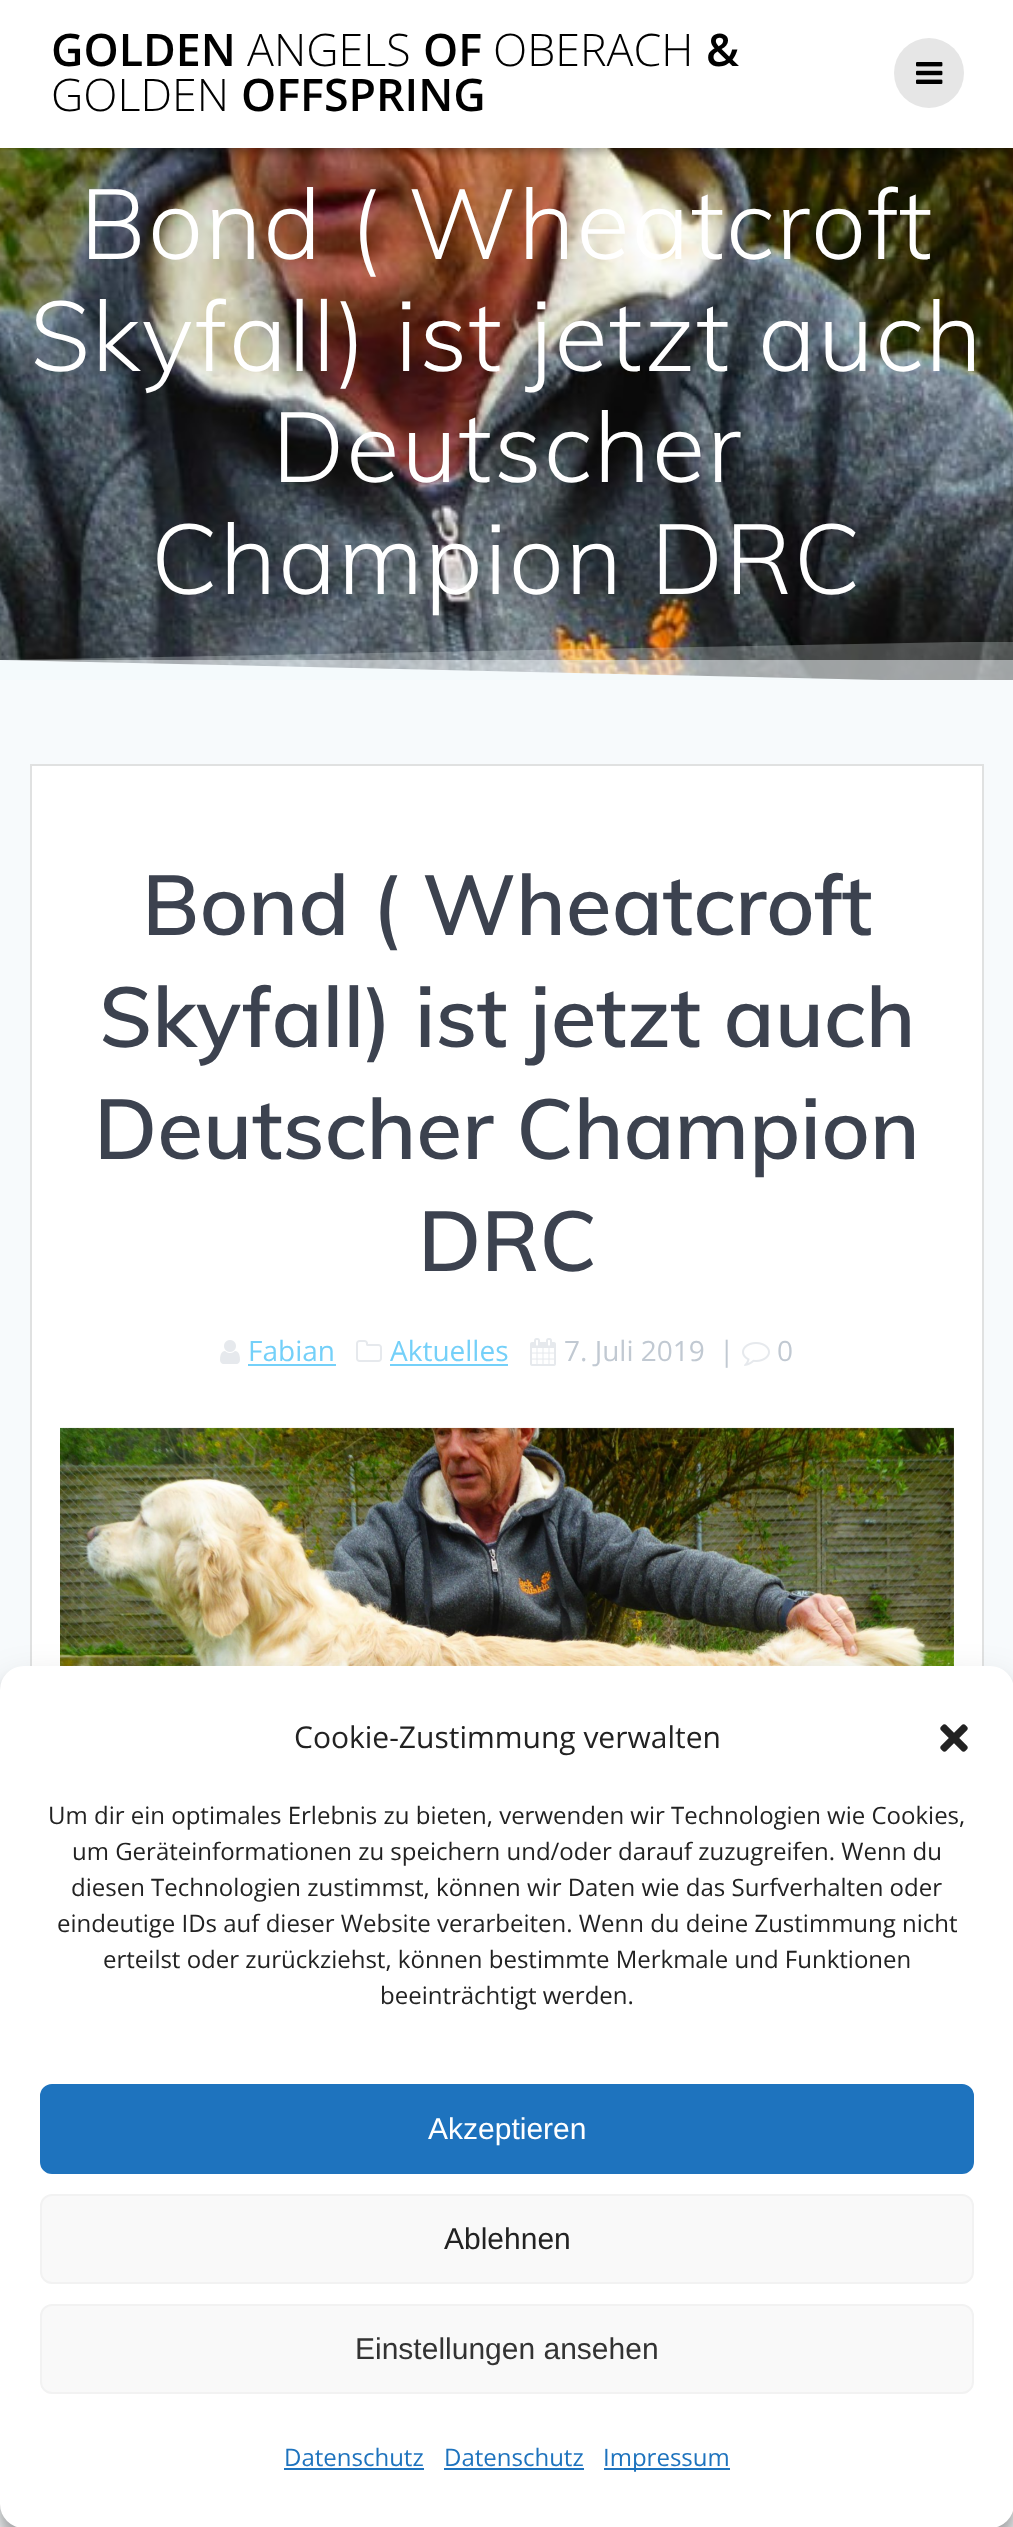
<?xml version="1.0" encoding="UTF-8"?>
<svg xmlns="http://www.w3.org/2000/svg" width="1013" height="2527">
    <defs>
        <filter id="blur1" x="-50%" y="-200%" width="200%" height="500%"><feGaussianBlur stdDeviation="5"/></filter>
        <clipPath id="clip1"><rect x="0" y="642" width="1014" height="42"/></clipPath>
        <filter id="blur2" x="-50%" y="-200%" width="200%" height="500%"><feGaussianBlur stdDeviation="6"/></filter>
        <filter id="blur3" x="-50%" y="-200%" width="200%" height="500%"><feGaussianBlur stdDeviation="20"/></filter>
    </defs>
    <rect width="100%" height="100%" fill="#FFFFFF"/>
    <image x="0" y="148" width="1013" height="532" href="img_02.png"/>
    <rect x="-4" y="-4" width="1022" height="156" fill="#000000" fill-opacity="0.33" filter="url(#blur1)"/>
    <rect x="0" y="0" width="1013" height="148" fill="#FFFFFF"/>
    <text x="51" y="66" font-family="Open Sans" font-size="44.75" font-weight="600" fill="#000000">GOLDEN</text>
    <text x="247" y="66" font-family="Open Sans" font-size="44.75" font-weight="300" fill="#000000">ANGELS</text>
    <text x="423" y="66" font-family="Open Sans" font-size="44.75" font-weight="600" fill="#000000">OF</text>
    <text x="493" y="66" font-family="Open Sans" font-size="44.75" font-weight="300" fill="#000000">OBERACH</text>
    <text x="706" y="66" font-family="Open Sans" font-size="44.75" font-weight="600" fill="#000000">&amp;</text>
    <text x="51" y="111" font-family="Open Sans" font-size="44.75" font-weight="300" fill="#000000">GOLDEN</text>
    <text x="241" y="111" font-family="Open Sans" font-size="44.75" font-weight="600" fill="#000000">OFFSPRING</text>
    <circle cx="929" cy="73" r="35" fill="#E6E6E6"/>
    <image x="916" y="62" width="27" height="22" href="img_01.png"/>
    <text x="80" y="259" font-family="Muli" font-size="98" font-weight="300" letter-spacing="1.8" fill="#FFFFFF">Bond ( Wheatcroft</text>
    <text x="30" y="371" font-family="Muli" font-size="98" font-weight="300" letter-spacing="1.8" fill="#FFFFFF">Skyfall) ist jetzt auch</text>
    <text x="272" y="482" font-family="Muli" font-size="98" font-weight="300" letter-spacing="1.8" fill="#FFFFFF">Deutscher</text>
    <text x="151" y="594" font-family="Muli" font-size="98" font-weight="300" letter-spacing="1.8" fill="#FFFFFF">Champion DRC</text>
    <path d="M 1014 683 H -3 V 660 Z" fill="#F5FAFD"/>
    <rect x="0" y="660" width="1013" height="20" fill="#F5FAFD" fill-opacity="0.5"/>
    <g clip-path="url(#clip1)">
        <path d="M -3 683 H 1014 V 641 L -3 660 Z" fill="#F5FAFD" fill-opacity="0.25"/>
    </g>
    <rect x="0" y="680" width="1013" height="1847" fill="#F7FAFC"/>
    <rect x="32" y="766" width="950" height="900" fill="#FFFFFF"/>
    <rect x="31" y="765" width="952" height="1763" fill="none" stroke="#E0E1E1" stroke-width="2"/>
    <text x="142" y="935" font-family="Muli" font-size="84" font-weight="600" fill="#3C424F">Bond ( Wheatcroft</text>
    <text x="99" y="1047" font-family="Muli" font-size="84" font-weight="600" fill="#3C424F">Skyfall) ist jetzt auch</text>
    <text x="94" y="1159" font-family="Muli" font-size="84" font-weight="600" fill="#3C424F">Deutscher Champion</text>
    <text x="418" y="1271" font-family="Muli" font-size="84" font-weight="600" fill="#3C424F">DRC</text>
    <image x="220" y="1340" width="20" height="24" href="img_03.png"/>
    <text x="248" y="1361" font-family="Open Sans" font-size="28" fill="#74D0F9">Fabian</text>
    <rect x="248" y="1364" width="88" height="2" fill="#74D0F9"/>
    <image x="356" y="1340" width="26" height="22" href="img_04.png"/>
    <text x="390" y="1361" font-family="Open Sans" font-size="28" fill="#74D0F9">Aktuelles</text>
    <rect x="390" y="1364" width="118" height="2" fill="#74D0F9"/>
    <image x="530" y="1338" width="26" height="28" href="img_05.png"/>
    <text x="564" y="1361" font-family="Open Sans" font-size="28" fill="#C1C9D2">7. Juli 2019</text>
    <text x="719" y="1361" font-family="Open Sans" font-size="28" fill="#C1C9D2">|</text>
    <image x="742" y="1342" width="28" height="24" href="img_06.png"/>
    <text x="777" y="1361" font-family="Open Sans" font-size="28" fill="#C1C9D2">0</text>
    <image x="60" y="1427" width="894" height="239" href="img_07.png"/>
    <rect x="0" y="1678" width="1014" height="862" rx="24" fill="#000000" fill-opacity="0.23" filter="url(#blur2)"/>
    <rect x="0" y="1686" width="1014" height="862" rx="24" fill="#000000" fill-opacity="0.19" filter="url(#blur3)"/>
    <rect x="0" y="1666" width="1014" height="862" rx="24" fill="#FFFFFF"/>
    <text x="294" y="1748" font-family="Open Sans" font-size="30" fill="#222222">Cookie-Zustimmung verwalten</text>
    <image x="940" y="1724" width="28" height="28" href="img_08.png"/>
    <text x="48" y="1824" font-family="Open Sans" font-size="24" fill="#222222">Um dir ein optimales Erlebnis zu bieten, verwenden wir Technologien wie Cookies,</text>
    <text x="72" y="1860" font-family="Open Sans" font-size="24" fill="#222222">um Geräteinformationen zu speichern und/oder darauf zuzugreifen. Wenn du</text>
    <text x="71" y="1896" font-family="Open Sans" font-size="24" fill="#222222">diesen Technologien zustimmst, können wir Daten wie das Surfverhalten oder</text>
    <text x="57" y="1932" font-family="Open Sans" font-size="24" fill="#222222">eindeutige IDs auf dieser Website verarbeiten. Wenn du deine Zustimmung nicht</text>
    <text x="103" y="1968" font-family="Open Sans" font-size="24" fill="#222222">erteilst oder zurückziehst, können bestimmte Merkmale und Funktionen</text>
    <text x="380" y="2004" font-family="Open Sans" font-size="24" fill="#222222">beeinträchtigt werden.</text>
    <rect x="41" y="2085" width="932" height="88" rx="11" fill="#1E73BE" stroke="#1E73BE" stroke-width="2"/>
    <text x="428" y="2139" font-family="Liberation Sans" font-size="30" fill="#FFFFFF">Akzeptieren</text>
    <rect x="41" y="2195" width="932" height="88" rx="11" fill="#F9F9F9" stroke="#F2F2F2" stroke-width="2"/>
    <text x="444" y="2249" font-family="Liberation Sans" font-size="30" fill="#222222">Ablehnen</text>
    <rect x="41" y="2305" width="932" height="88" rx="11" fill="#F9F9F9" stroke="#F2F2F2" stroke-width="2"/>
    <text x="355" y="2359" font-family="Liberation Sans" font-size="30" fill="#333333">Einstellungen ansehen</text>
    <text x="284" y="2466" font-family="Open Sans" font-size="24" fill="#1E73BE">Datenschutz</text>
    <rect x="284" y="2468" width="140" height="2" fill="#1E73BE"/>
    <text x="444" y="2466" font-family="Open Sans" font-size="24" fill="#1E73BE">Datenschutz</text>
    <rect x="444" y="2468" width="140" height="2" fill="#1E73BE"/>
    <rect x="604" y="2468" width="126" height="2" fill="#1E73BE"/>
    <text x="603" y="2466" font-family="Open Sans" font-size="24" fill="#1E73BE">Impressum</text>
</svg>
